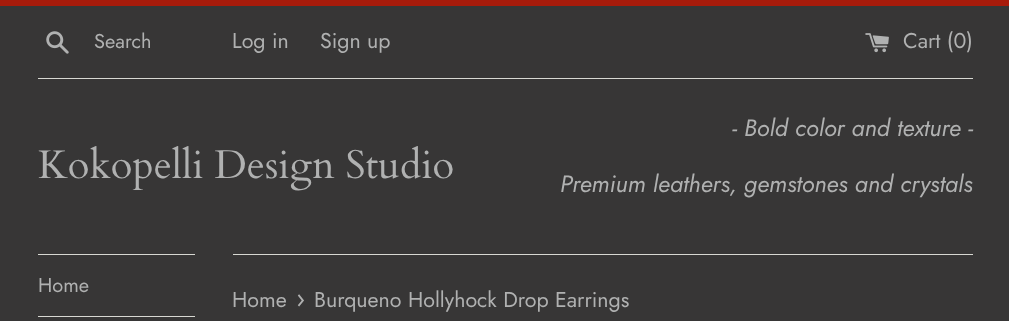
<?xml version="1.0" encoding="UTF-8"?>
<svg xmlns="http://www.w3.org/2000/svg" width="1009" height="321">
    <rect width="100%" height="100%" fill="#373636"/>
    <rect x="0" y="0" width="1009" height="6" fill="#A71B0B"/>
    <image x="46" y="31" width="23" height="23" href="img_01.png"/>
    <text x="94" y="48" font-family="Jost" font-size="20" fill="#B0B1B1">Search</text>
    <text x="232" y="48" font-family="Jost" font-size="21.4" fill="#B0B1B1">Log in</text>
    <text x="320" y="48" font-family="Jost" font-size="21.4" fill="#B0B1B1">Sign up</text>
    <image x="865" y="33" width="24" height="20" href="img_02.png"/>
    <text x="903" y="48" font-family="Jost" font-size="21.4" fill="#B0B1B1">Cart (0)</text>
    <rect x="38" y="78" width="935" height="1" fill="#D7D8D2"/>
    <text x="38" y="178" font-family="Cardo" font-size="40" fill="#B0B1B1">Kokopelli Design Studio</text>
    <text x="732" y="136" font-family="Jost" font-size="23.75" font-style="italic" fill="#B0B1B1">- Bold color and texture -</text>
    <text x="560" y="192" font-family="Jost" font-size="23.75" font-style="italic" fill="#B0B1B1">Premium leathers, gemstones and crystals</text>
    <rect x="38" y="254" width="157" height="1" fill="#D7D8D2"/>
    <rect x="38" y="316" width="157" height="1" fill="#D7D8D2"/>
    <text x="38" y="292" font-family="Jost" font-size="20" fill="#B0B1B1">Home</text>
    <rect x="233" y="254" width="740" height="1" fill="#D7D8D2"/>
    <text x="232" y="307" font-family="Jost" font-size="21.4" fill="#B0B1B1">Home</text>
    <text x="296" y="307" font-family="Jost" font-size="26" fill="#B0B1B1">›</text>
    <text x="314" y="307" font-family="Jost" font-size="21.4" fill="#B0B1B1">Burqueno Hollyhock Drop Earrings</text>
</svg>
